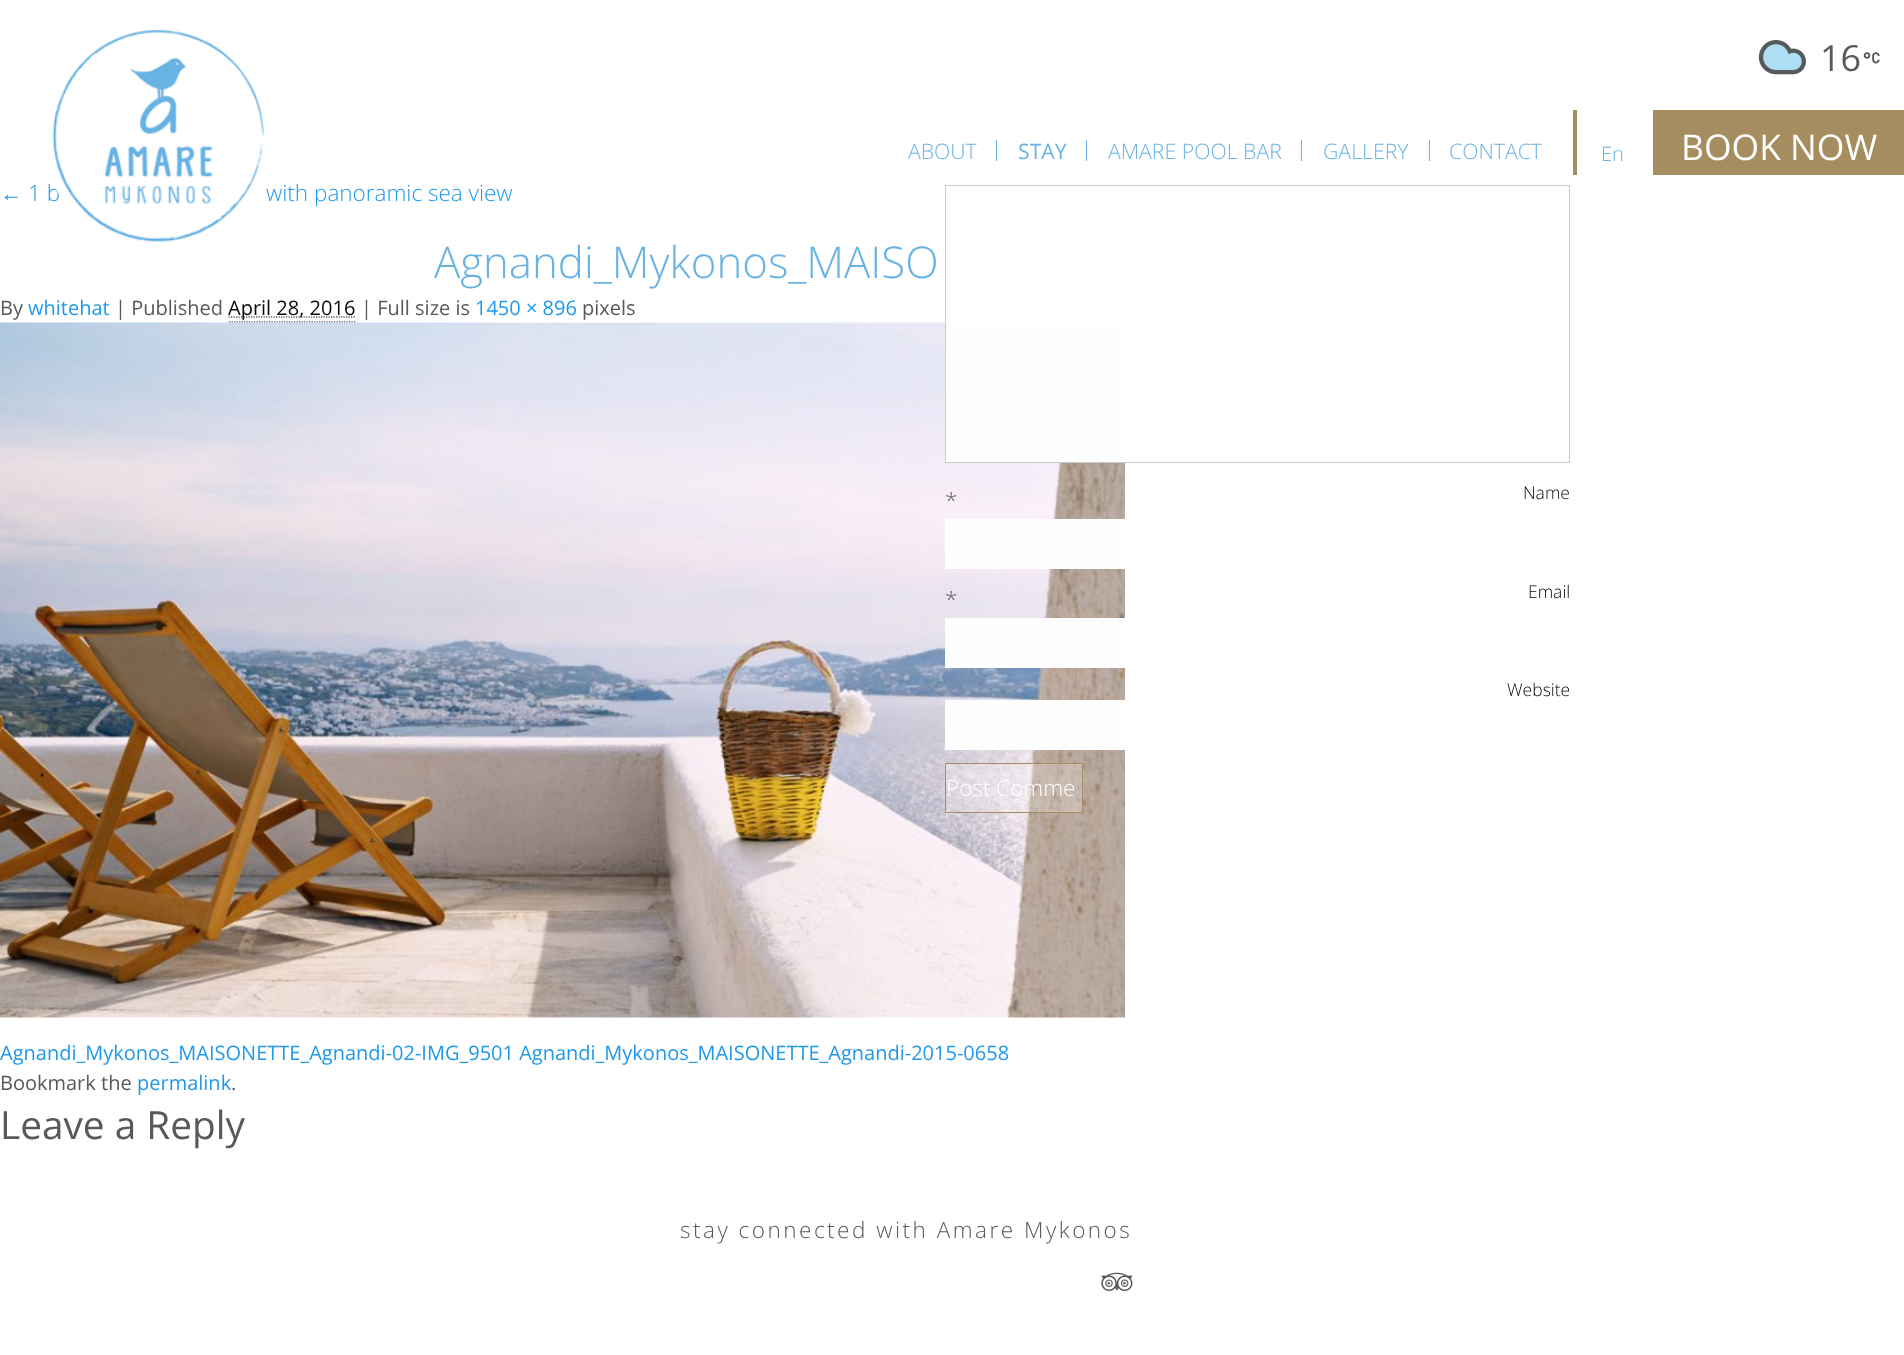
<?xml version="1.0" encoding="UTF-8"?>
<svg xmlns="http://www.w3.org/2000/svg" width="1904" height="1355">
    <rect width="100%" height="100%" fill="#FFFFFF"/>
    <text x="28" y="201" font-family="Open Sans" font-size="22.5" font-weight="300" fill="#2199E8">1 b</text>
    <image x="52" y="29" width="212" height="214" href="img_01.png"/>
    <image x="1758" y="40" width="48" height="35" href="img_02.png"/>
    <text x="1820" y="71" font-family="Open Sans" font-size="36" fill="#58595A">16</text>
    <image x="1863" y="52" width="17" height="12" href="img_03.png"/>
    <text x="908" y="159" font-family="Open Sans" font-size="21.25" font-weight="300" fill="#69B3E4">ABOUT</text>
    <rect x="996" y="140" width="1" height="21" fill="#69B3E4"/>
    <text x="1018" y="159" font-family="Open Sans" font-size="21.25" fill="#69B3E4">STAY</text>
    <rect x="1086" y="140" width="1" height="21" fill="#69B3E4"/>
    <text x="1108" y="159" font-family="Open Sans" font-size="21.25" font-weight="300" fill="#69B3E4">AMARE POOL BAR</text>
    <rect x="1301" y="140" width="1" height="21" fill="#69B3E4"/>
    <text x="1323" y="159" font-family="Open Sans" font-size="21.25" font-weight="300" fill="#69B3E4">GALLERY</text>
    <rect x="1429" y="140" width="1" height="21" fill="#69B3E4"/>
    <text x="1449" y="159" font-family="Open Sans" font-size="21.25" font-weight="300" fill="#69B3E4">CONTACT</text>
    <rect x="1573" y="110" width="4" height="65" fill="#A68D60"/>
    <text x="1601" y="161" font-family="Open Sans" font-size="20" font-weight="300" fill="#69B3E4">En</text>
    <rect x="1653" y="110" width="251" height="65" fill="#A68D60"/>
    <text x="1681" y="160" font-family="Open Sans" font-size="35.5" fill="#FFFFFF">BOOK NOW</text>
    <text x="0" y="201" font-family="Liberation Sans" font-size="22.5" fill="#2199E8">←</text>
    <text x="266" y="201" font-family="Open Sans" font-size="22.5" font-weight="300" fill="#2199E8">with panoramic sea view</text>
    <text x="434" y="278" font-family="Open Sans" font-size="43.75" font-weight="300" fill="#69B3E4">Agnandi_Mykonos_MAISO</text>
    <text x="0" y="315" font-family="Open Sans" font-size="20" fill="#58595A">By</text>
    <text x="28" y="315" font-family="Open Sans" font-size="20" fill="#2199E8">whitehat</text>
    <text x="115" y="315" font-family="Open Sans" font-size="20" fill="#58595A">| Published</text>
    <path d="M 228.5 317 H 355.5" fill="none" stroke="#0A0A0A" stroke-width="1.2" stroke-dasharray="1.25 1.25"/>
    <text x="228" y="315" font-family="Open Sans" font-size="20" fill="#0A0A0A">April 28, 2016</text>
    <path d="M 229 322 H 356" fill="none" stroke="#0A0A0A" stroke-width="1.2" stroke-dasharray="1.25 1.25"/>
    <text x="361" y="315" font-family="Open Sans" font-size="20" fill="#58595A">| Full size is</text>
    <text x="475" y="315" font-family="Open Sans" font-size="20" fill="#2199E8">1450 × 896</text>
    <text x="582" y="315" font-family="Open Sans" font-size="20" fill="#58595A">pixels</text>
    <image x="0" y="322" width="1125" height="696" href="img_04.png"/>
    <text x="0" y="1060" font-family="Open Sans" font-size="20" fill="#2199E8">Agnandi_Mykonos_MAISONETTE_Agnandi-02-IMG_9501 Agnandi_Mykonos_MAISONETTE_Agnandi-2015-0658</text>
    <text x="0" y="1090" font-family="Open Sans" font-size="20" fill="#58595A">Bookmark the</text>
    <text x="137" y="1090" font-family="Open Sans" font-size="20" fill="#2199E8">permalink</text>
    <text x="231" y="1090" font-family="Open Sans" font-size="20" fill="#58595A">.</text>
    <rect x="946" y="322" width="179" height="140" fill="#FEFEFE"/>
    <rect x="945.5" y="185.5" width="624" height="277" fill="none" stroke="#CACACA"/>
    <text x="945" y="509" font-family="Open Sans" font-size="22.5" font-weight="300" fill="#58595A">*</text>
    <text x="1523" y="499" font-family="Open Sans" font-size="17.5" font-weight="300" fill="#0A0A0A">Name</text>
    <rect x="945" y="519" width="180" height="50" fill="#FEFEFE"/>
    <text x="945" y="608" font-family="Open Sans" font-size="22.5" font-weight="300" fill="#58595A">*</text>
    <text x="1528" y="598" font-family="Open Sans" font-size="17.5" font-weight="300" fill="#0A0A0A">Email</text>
    <rect x="945" y="618" width="180" height="50" fill="#FEFEFE"/>
    <text x="1507" y="696" font-family="Open Sans" font-size="17.5" font-weight="300" fill="#0A0A0A">Website</text>
    <rect x="945" y="700" width="180" height="50" fill="#FEFEFE"/>
    <rect x="945.5" y="763.5" width="137" height="49" fill="#FFFFFF" fill-opacity="0.2" stroke="#A68D60"/>
    <text x="946" y="796" font-family="Open Sans" font-size="22.5" font-weight="300" fill="#FFFFFF">Post Comme</text>
    <text x="0" y="1139" font-family="Open Sans" font-size="38.75" fill="#58595A">Leave a Reply</text>
    <text x="680" y="1238" font-family="Open Sans" font-size="22.5" font-weight="300" letter-spacing="2.5" fill="#58595A">stay connected with Amare Mykonos</text>
    <image x="1101" y="1272" width="32" height="19" href="img_05.png"/>
</svg>
